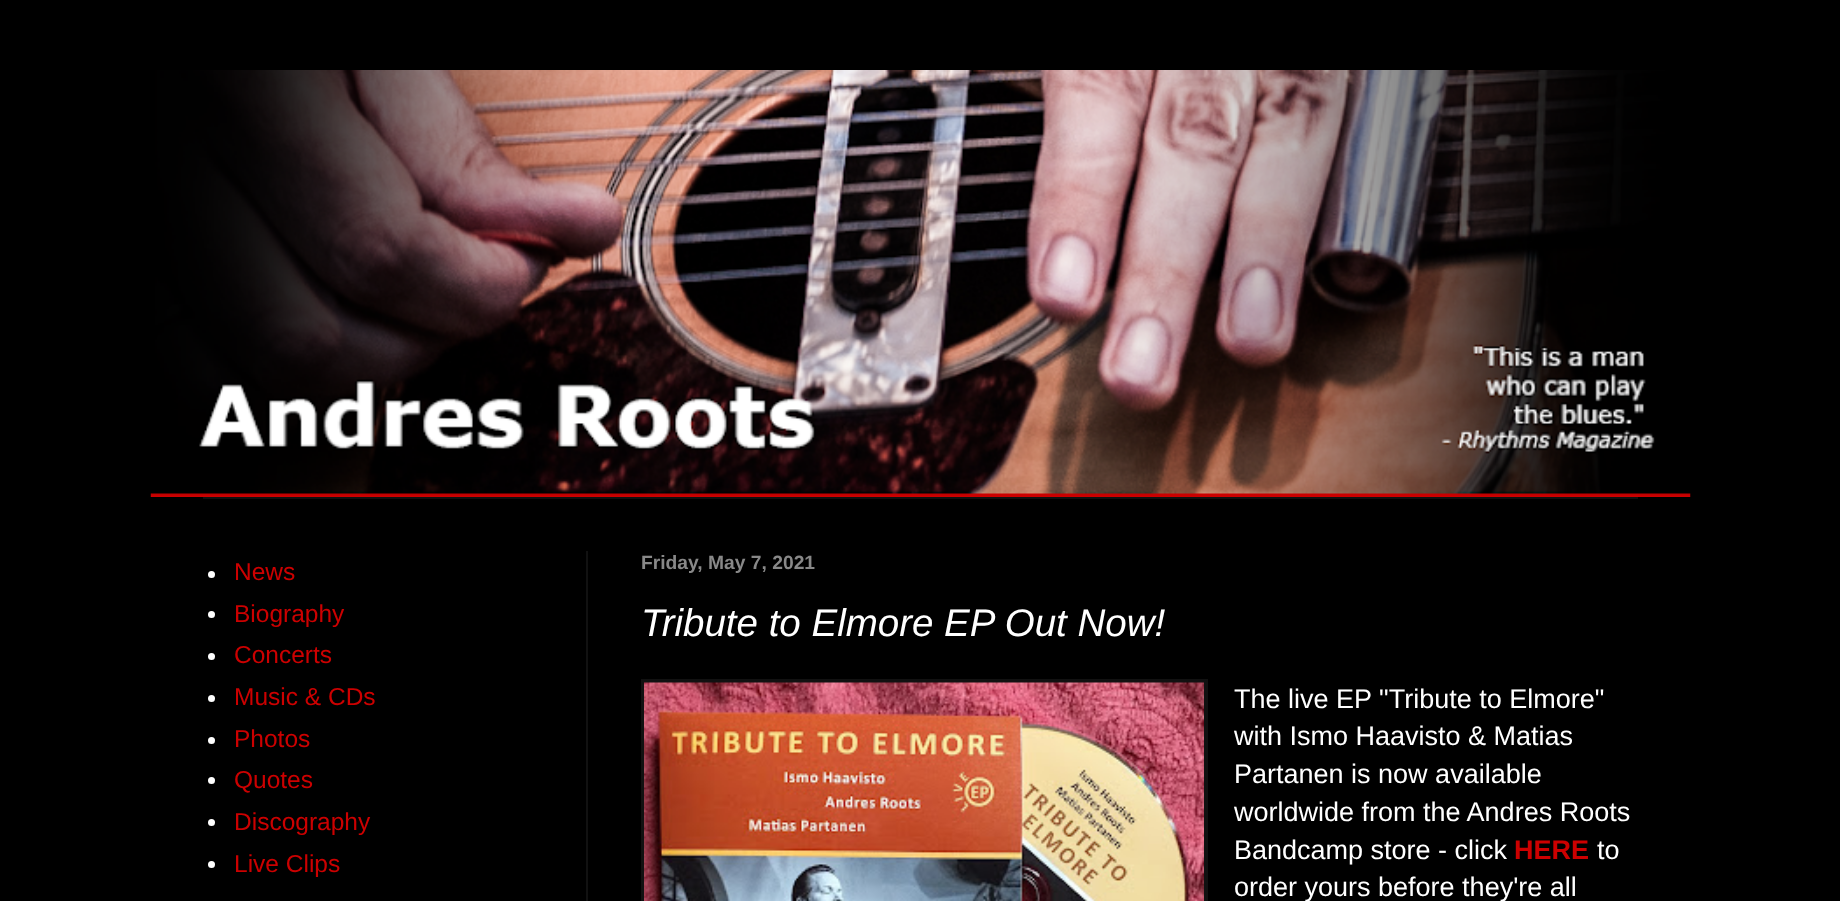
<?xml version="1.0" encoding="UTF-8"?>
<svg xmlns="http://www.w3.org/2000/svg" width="1840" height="901">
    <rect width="100%" height="100%" fill="#000000"/>
    <image x="150" y="70" width="1541" height="427" href="img_01.png"/>
    <rect x="203" y="497" width="1435" height="2" fill="#111111"/>
    <rect x="586" y="551" width="2" height="350" fill="#111111"/>
    <circle cx="211.5" cy="574.5" r="3.5" fill="#FFFFFF"/>
    <text x="234" y="580" font-family="Liberation Sans" font-size="24.5" fill="#CC0000">News</text>
    <circle cx="211.5" cy="614.5" r="3.5" fill="#FFFFFF"/>
    <text x="234" y="622" font-family="Liberation Sans" font-size="24.5" fill="#CC0000">Biography</text>
    <circle cx="211.5" cy="656.5" r="3.5" fill="#FFFFFF"/>
    <text x="234" y="663" font-family="Liberation Sans" font-size="24.5" fill="#CC0000">Concerts</text>
    <circle cx="211.5" cy="698.5" r="3.5" fill="#FFFFFF"/>
    <text x="234" y="705" font-family="Liberation Sans" font-size="24.5" fill="#CC0000">Music &amp; CDs</text>
    <circle cx="211.5" cy="740.5" r="3.5" fill="#FFFFFF"/>
    <text x="234" y="747" font-family="Liberation Sans" font-size="24.5" fill="#CC0000">Photos</text>
    <circle cx="211.5" cy="780.5" r="3.5" fill="#FFFFFF"/>
    <text x="234" y="788" font-family="Liberation Sans" font-size="24.5" fill="#CC0000">Quotes</text>
    <circle cx="211.5" cy="822.5" r="3.5" fill="#FFFFFF"/>
    <text x="234" y="830" font-family="Liberation Sans" font-size="24.5" fill="#CC0000">Discography</text>
    <circle cx="211.5" cy="864.5" r="3.5" fill="#FFFFFF"/>
    <text x="234" y="872" font-family="Liberation Sans" font-size="24.5" fill="#CC0000">Live Clips</text>
    <text x="641" y="569" font-family="Liberation Sans" font-size="19.25" font-weight="700" fill="#888888">Friday, May 7, 2021</text>
    <text x="641" y="636" font-family="Liberation Sans" font-size="38.5" font-style="italic" fill="#FFFFFF">Tribute to Elmore EP Out Now!</text>
    <rect x="641" y="679" width="567" height="222" fill="#111111"/>
    <image x="644" y="682" width="560" height="219" href="img_02.png"/>
    <text font-family="Liberation Sans" font-size="27" fill="#FFFFFF">
        <tspan x="1234" y="708">The live EP "Tribute to Elmore"</tspan>
        <tspan x="1234" y="745">with Ismo Haavisto &amp; Matias</tspan>
        <tspan x="1234" y="783">Partanen is now available</tspan>
        <tspan x="1234" y="821">worldwide from the Andres Roots</tspan>
        <tspan x="1234" y="859">Bandcamp store - click</tspan>
    </text>
    <text x="1514" y="859" font-family="Liberation Sans" font-size="27" font-weight="700" fill="#CC0000">HERE</text>
    <text x="1597" y="859" font-family="Liberation Sans" font-size="27" fill="#FFFFFF">to</text>
    <text x="1234" y="896" font-family="Liberation Sans" font-size="27" fill="#FFFFFF">order yours before they're all</text>
</svg>
